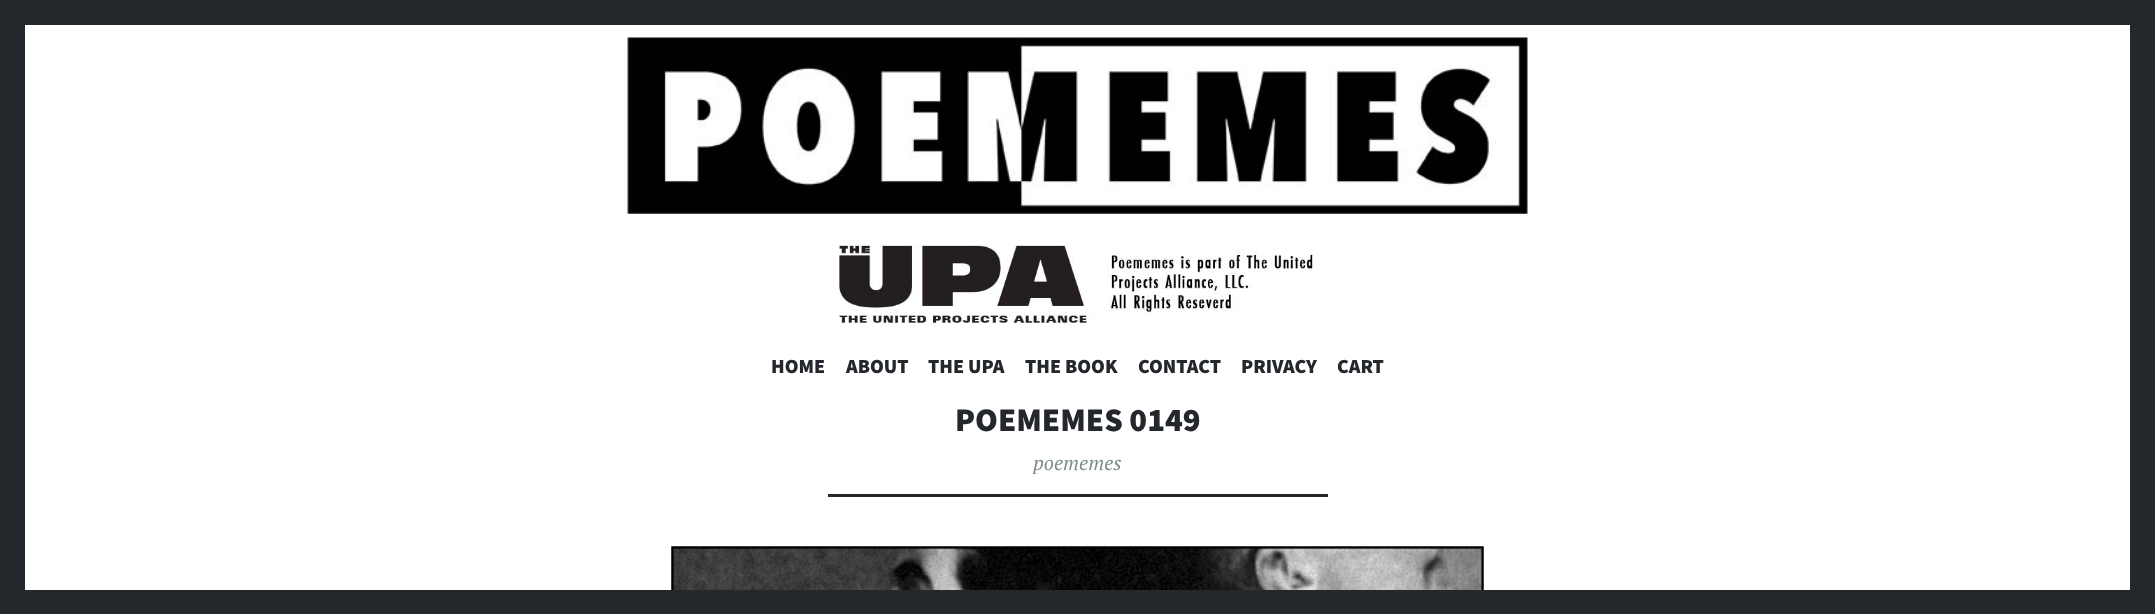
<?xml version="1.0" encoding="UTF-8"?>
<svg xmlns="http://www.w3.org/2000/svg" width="2155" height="614">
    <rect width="100%" height="100%" fill="#24282D"/>
    <rect x="25" y="25" width="2105" height="565" fill="#FFFFFF"/>
    <image x="627" y="37" width="901" height="177" href="img_01.png"/>
    <image x="839" y="244" width="475" height="79" href="img_02.png"/>
    <text x="771" y="373" font-family="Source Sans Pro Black" font-size="20" font-weight="900" fill="#24282D">HOME</text>
    <text x="846" y="373" font-family="Source Sans Pro Black" font-size="20" font-weight="900" fill="#24282D">ABOUT</text>
    <text x="928" y="373" font-family="Source Sans Pro Black" font-size="20" font-weight="900" fill="#24282D">THE UPA</text>
    <text x="1025" y="373" font-family="Source Sans Pro Black" font-size="20" font-weight="900" fill="#24282D">THE BOOK</text>
    <text x="1138" y="373" font-family="Source Sans Pro Black" font-size="20" font-weight="900" fill="#24282D">CONTACT</text>
    <text x="1241" y="373" font-family="Source Sans Pro Black" font-size="20" font-weight="900" fill="#24282D">PRIVACY</text>
    <text x="1337" y="373" font-family="Source Sans Pro Black" font-size="20" font-weight="900" fill="#24282D">CART</text>
    <text x="955" y="431" font-family="Source Sans Pro Black" font-size="33" font-weight="900" fill="#24282D">POEMEMES 0149</text>
    <text x="1033" y="470" font-family="PT Serif" font-size="20" font-style="italic" fill="#7F8D8C">poememes</text>
    <rect x="828" y="494" width="500" height="3" fill="#24282D"/>
    <image x="671" y="546" width="813" height="44" href="img_03.png"/>
</svg>
